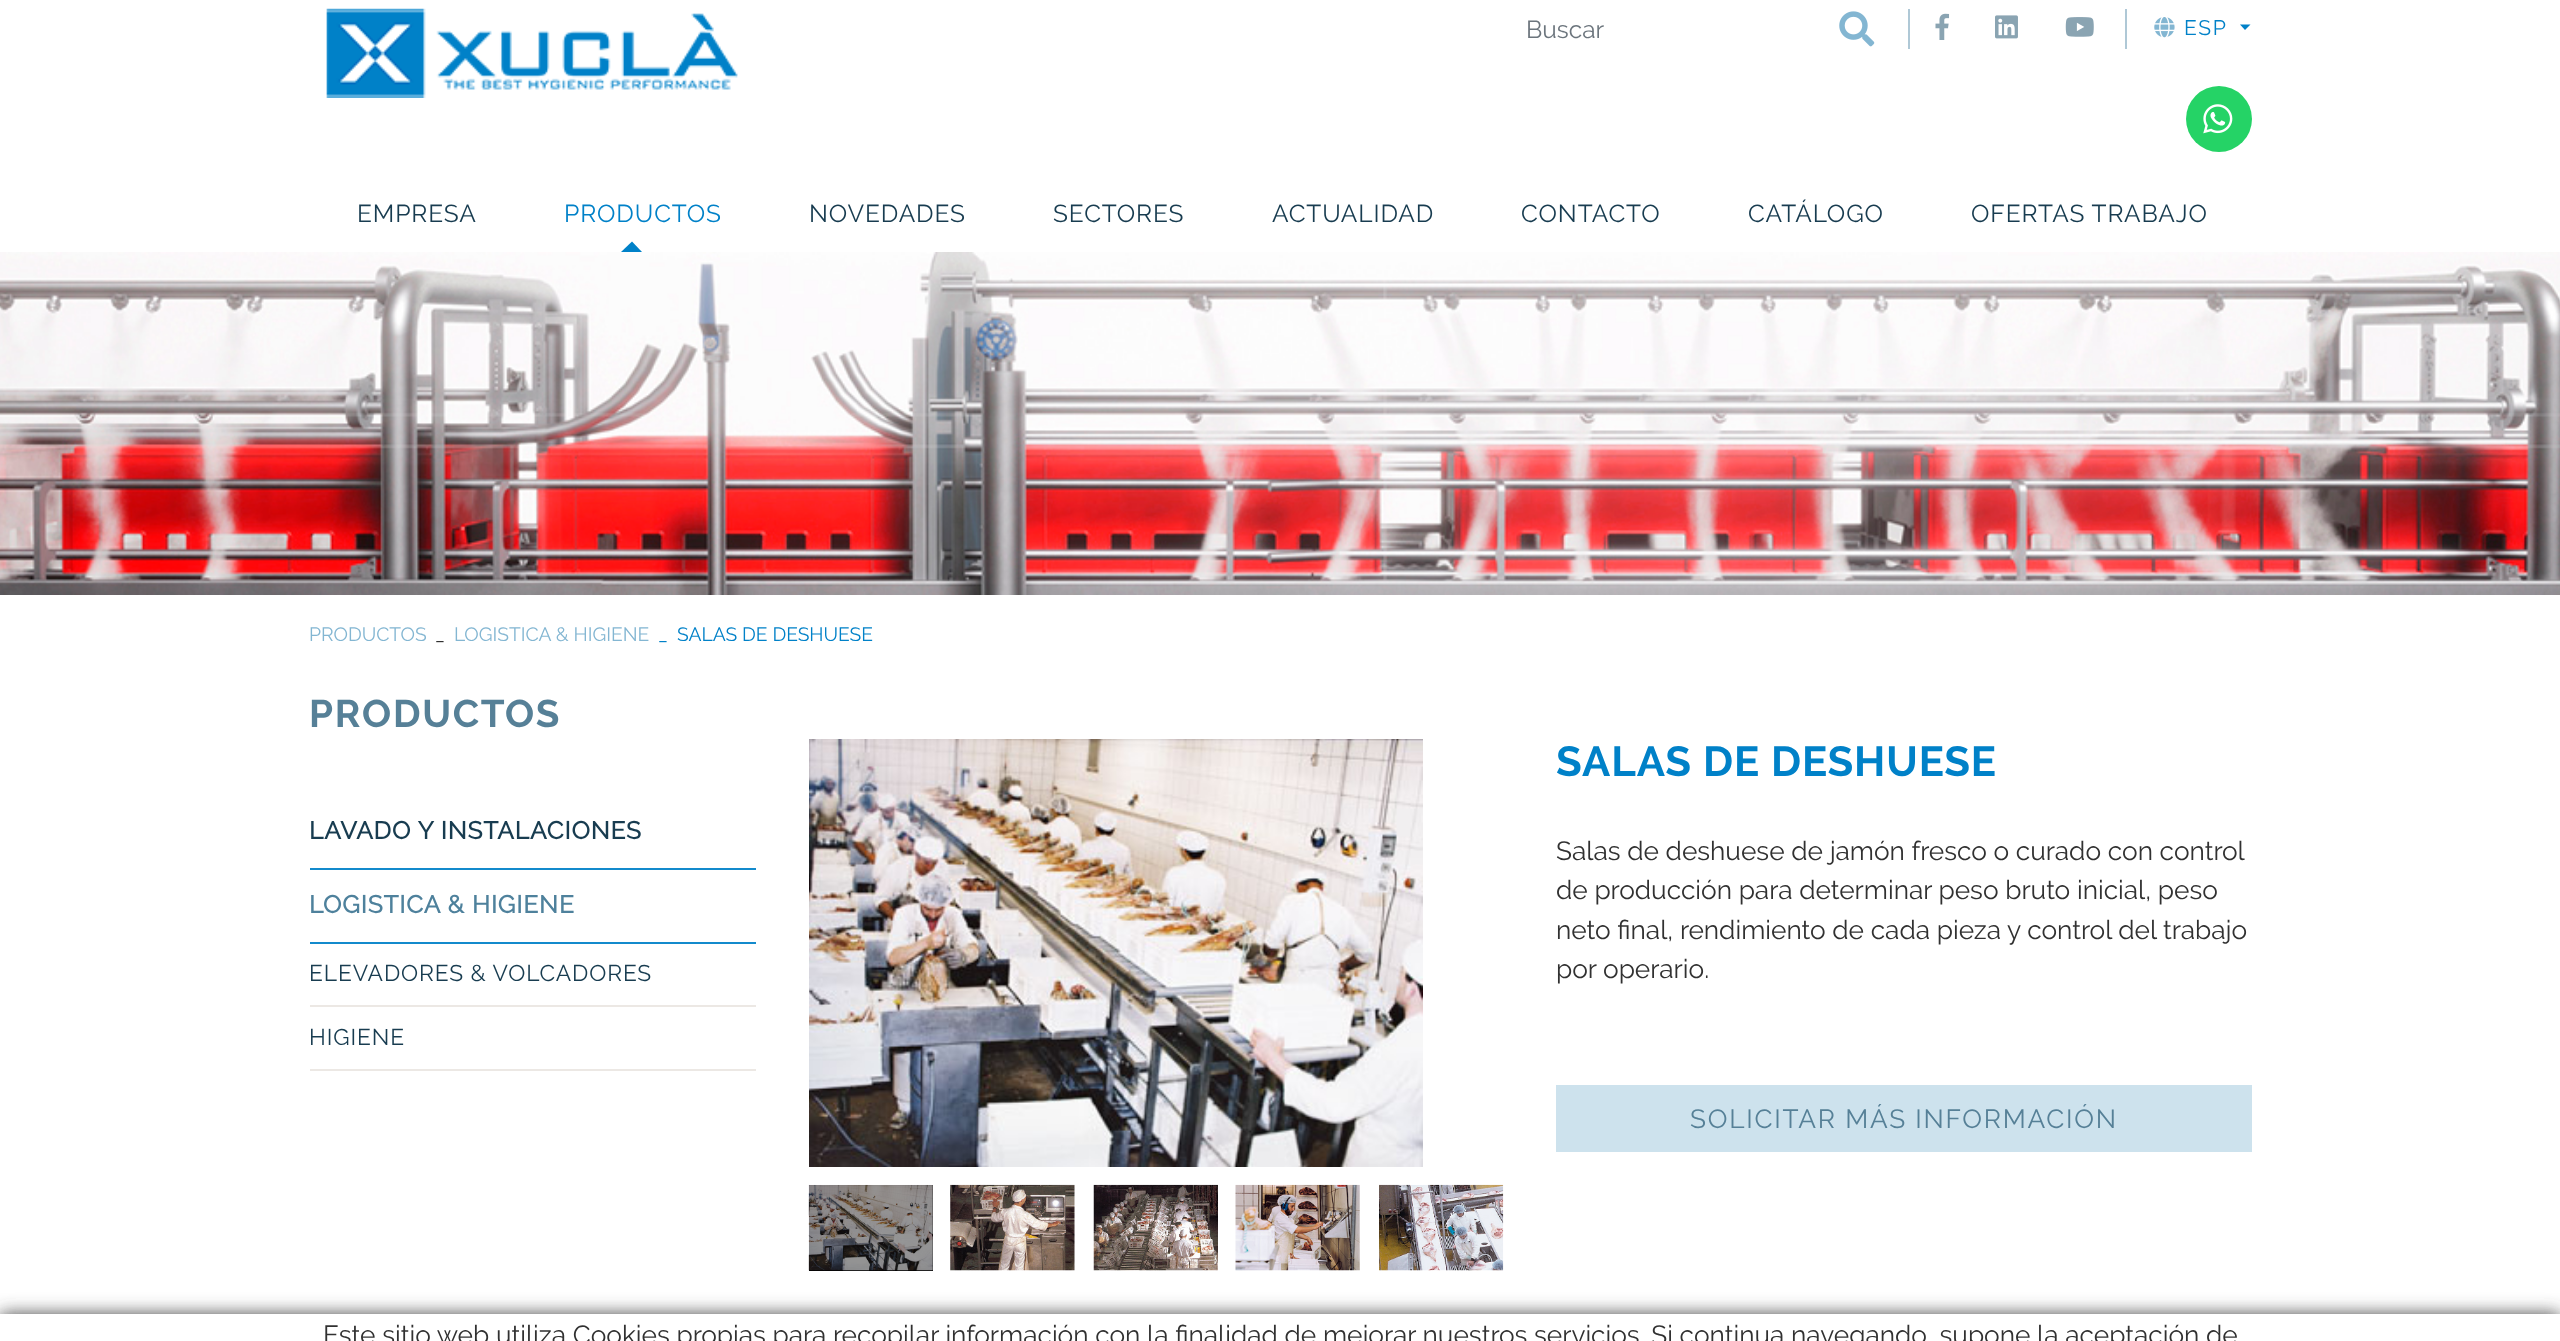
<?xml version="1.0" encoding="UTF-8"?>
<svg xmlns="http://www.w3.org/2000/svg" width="2560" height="1341">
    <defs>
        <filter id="blur1" x="-50%" y="-200%" width="200%" height="500%"><feGaussianBlur stdDeviation="9"/></filter>
    </defs>
    <rect width="100%" height="100%" fill="#FFFFFF"/>
    <image x="326" y="8" width="412" height="90" href="img_01.png"/>
    <text x="1526" y="38" font-family="Raleway" font-size="24.5" fill="#6C757D">Buscar</text>
    <image x="1839" y="11" width="36" height="36" href="img_02.png"/>
    <rect x="2125" y="9" width="2" height="40" fill="#AFC8D6"/>
    <rect x="1908" y="9" width="2" height="40" fill="#AFC8D6"/>
    <image x="1935" y="13" width="15" height="27" href="img_03.png"/>
    <image x="1995" y="15" width="23" height="24" href="img_04.png"/>
    <image x="2065" y="17" width="29" height="20" href="img_05.png"/>
    <image x="2154" y="17" width="21" height="21" href="img_06.png"/>
    <text x="2184" y="35" font-family="Raleway" font-size="21" letter-spacing="1.75" fill="#0081C8">ESP</text>
    <path d="M 2240 24.5 H 2250.5 L 2245 30 Z" fill="#0081C8"/>
    <circle cx="2219" cy="119" r="33" fill="#25D366"/>
    <image x="2203" y="104" width="30" height="30" href="img_07.png"/>
    <text x="357" y="222" font-family="Raleway" font-size="24.5" letter-spacing="0.9" fill="#183C50">EMPRESA</text>
    <text x="564" y="222" font-family="Raleway" font-size="24.5" letter-spacing="0.9" fill="#0081C8">PRODUCTOS</text>
    <path d="M 642 252 H 621 L 632 241.5 Z" fill="#0081C8"/>
    <text x="809" y="222" font-family="Raleway" font-size="24.5" letter-spacing="0.9" fill="#183C50">NOVEDADES</text>
    <text x="1053" y="222" font-family="Raleway" font-size="24.5" letter-spacing="0.9" fill="#183C50">SECTORES</text>
    <text x="1272" y="222" font-family="Raleway" font-size="24.5" letter-spacing="0.9" fill="#183C50">ACTUALIDAD</text>
    <text x="1521" y="222" font-family="Raleway" font-size="24.5" letter-spacing="0.9" fill="#183C50">CONTACTO</text>
    <text x="1748" y="222" font-family="Raleway" font-size="24.5" letter-spacing="0.9" fill="#183C50">CATÁLOGO</text>
    <text x="1971" y="222" font-family="Raleway" font-size="24.5" letter-spacing="0.9" fill="#183C50">OFERTAS TRABAJO</text>
    <image x="0" y="252" width="2560" height="343" href="img_08.png"/>
    <text x="309" y="641" font-family="Raleway" font-size="19.25" fill="#83B6D2">PRODUCTOS</text>
    <text x="435" y="641" font-family="Raleway" font-size="19.25" fill="#313131">_</text>
    <text x="454" y="641" font-family="Raleway" font-size="19.25" fill="#83B6D2">LOGISTICA &amp; HIGIENE</text>
    <text x="658" y="641" font-family="Raleway" font-size="19.25" fill="#0081C8">_</text>
    <text x="677" y="641" font-family="Raleway" font-size="19.25" fill="#0081C8">SALAS DE DESHUESE</text>
    <text x="309" y="727" font-family="Raleway" font-size="38.5" font-weight="700" letter-spacing="1.75" fill="#568097">PRODUCTOS</text>
    <rect x="310" y="868" width="446" height="2" fill="#138ACC"/>
    <text x="309" y="839" font-family="'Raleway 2'" font-size="24.5" font-weight="700" letter-spacing="0.9" fill="#183C50">LAVADO Y INSTALACIONES</text>
    <rect x="310" y="942" width="446" height="2" fill="#138ACC"/>
    <text x="309" y="913" font-family="'Raleway 2'" font-size="24.5" font-weight="700" letter-spacing="0.9" fill="#4E819C">LOGISTICA &amp; HIGIENE</text>
    <rect x="310" y="1005" width="446" height="2" fill="#ECE8E4"/>
    <text x="309" y="981" font-family="Raleway" font-size="22.75" letter-spacing="0.9" fill="#183C50">ELEVADORES &amp; VOLCADORES</text>
    <rect x="310" y="1069" width="446" height="2" fill="#ECE8E4"/>
    <text x="309" y="1045" font-family="Raleway" font-size="22.75" letter-spacing="0.9" fill="#183C50">HIGIENE</text>
    <image x="809" y="739" width="614" height="428" href="img_09.png"/>
    <rect x="809" y="1185" width="124" height="86" fill="#000000"/>
    <image x="808" y="1184" width="125" height="87" href="img_10.png"/>
    <image x="950" y="1184" width="125" height="87" href="img_11.png"/>
    <image x="1093" y="1184" width="125" height="87" href="img_12.png"/>
    <image x="1235" y="1184" width="125" height="87" href="img_13.png"/>
    <image x="1379" y="1184" width="125" height="87" href="img_14.png"/>
    <text x="1556" y="776" font-family="Raleway" font-size="42" font-weight="700" letter-spacing="0.9" fill="#0081C8">SALAS DE DESHUESE</text>
    <text font-family="Raleway" font-size="26.25" fill="#313131">
        <tspan x="1556" y="860">Salas de deshuese de jamón fresco o curado con control</tspan>
        <tspan x="1556" y="899">de producción para determinar peso bruto inicial, peso</tspan>
        <tspan x="1556" y="939">neto final, rendimiento de cada pieza y control del trabajo</tspan>
        <tspan x="1556" y="978">por operario.</tspan>
    </text>
    <rect x="1556" y="1085" width="696" height="67" fill="#CDE2ED"/>
    <text x="1690" y="1128" font-family="Raleway" font-size="26.25" letter-spacing="1.75" fill="#568097">SOLICITAR MÁS INFORMACIÓN</text>
    <rect x="0" y="1314" width="2560" height="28" fill="#444444" filter="url(#blur1)"/>
    <rect x="0" y="1314" width="2560" height="27" fill="#FFFFFF"/>
    <text x="323" y="1344" font-family="Raleway" font-size="26.25" fill="#313131">Este sitio web utiliza Cookies propias para recopilar información con la finalidad de mejorar nuestros servicios. Si continua navegando, supone la aceptación de</text>
</svg>
